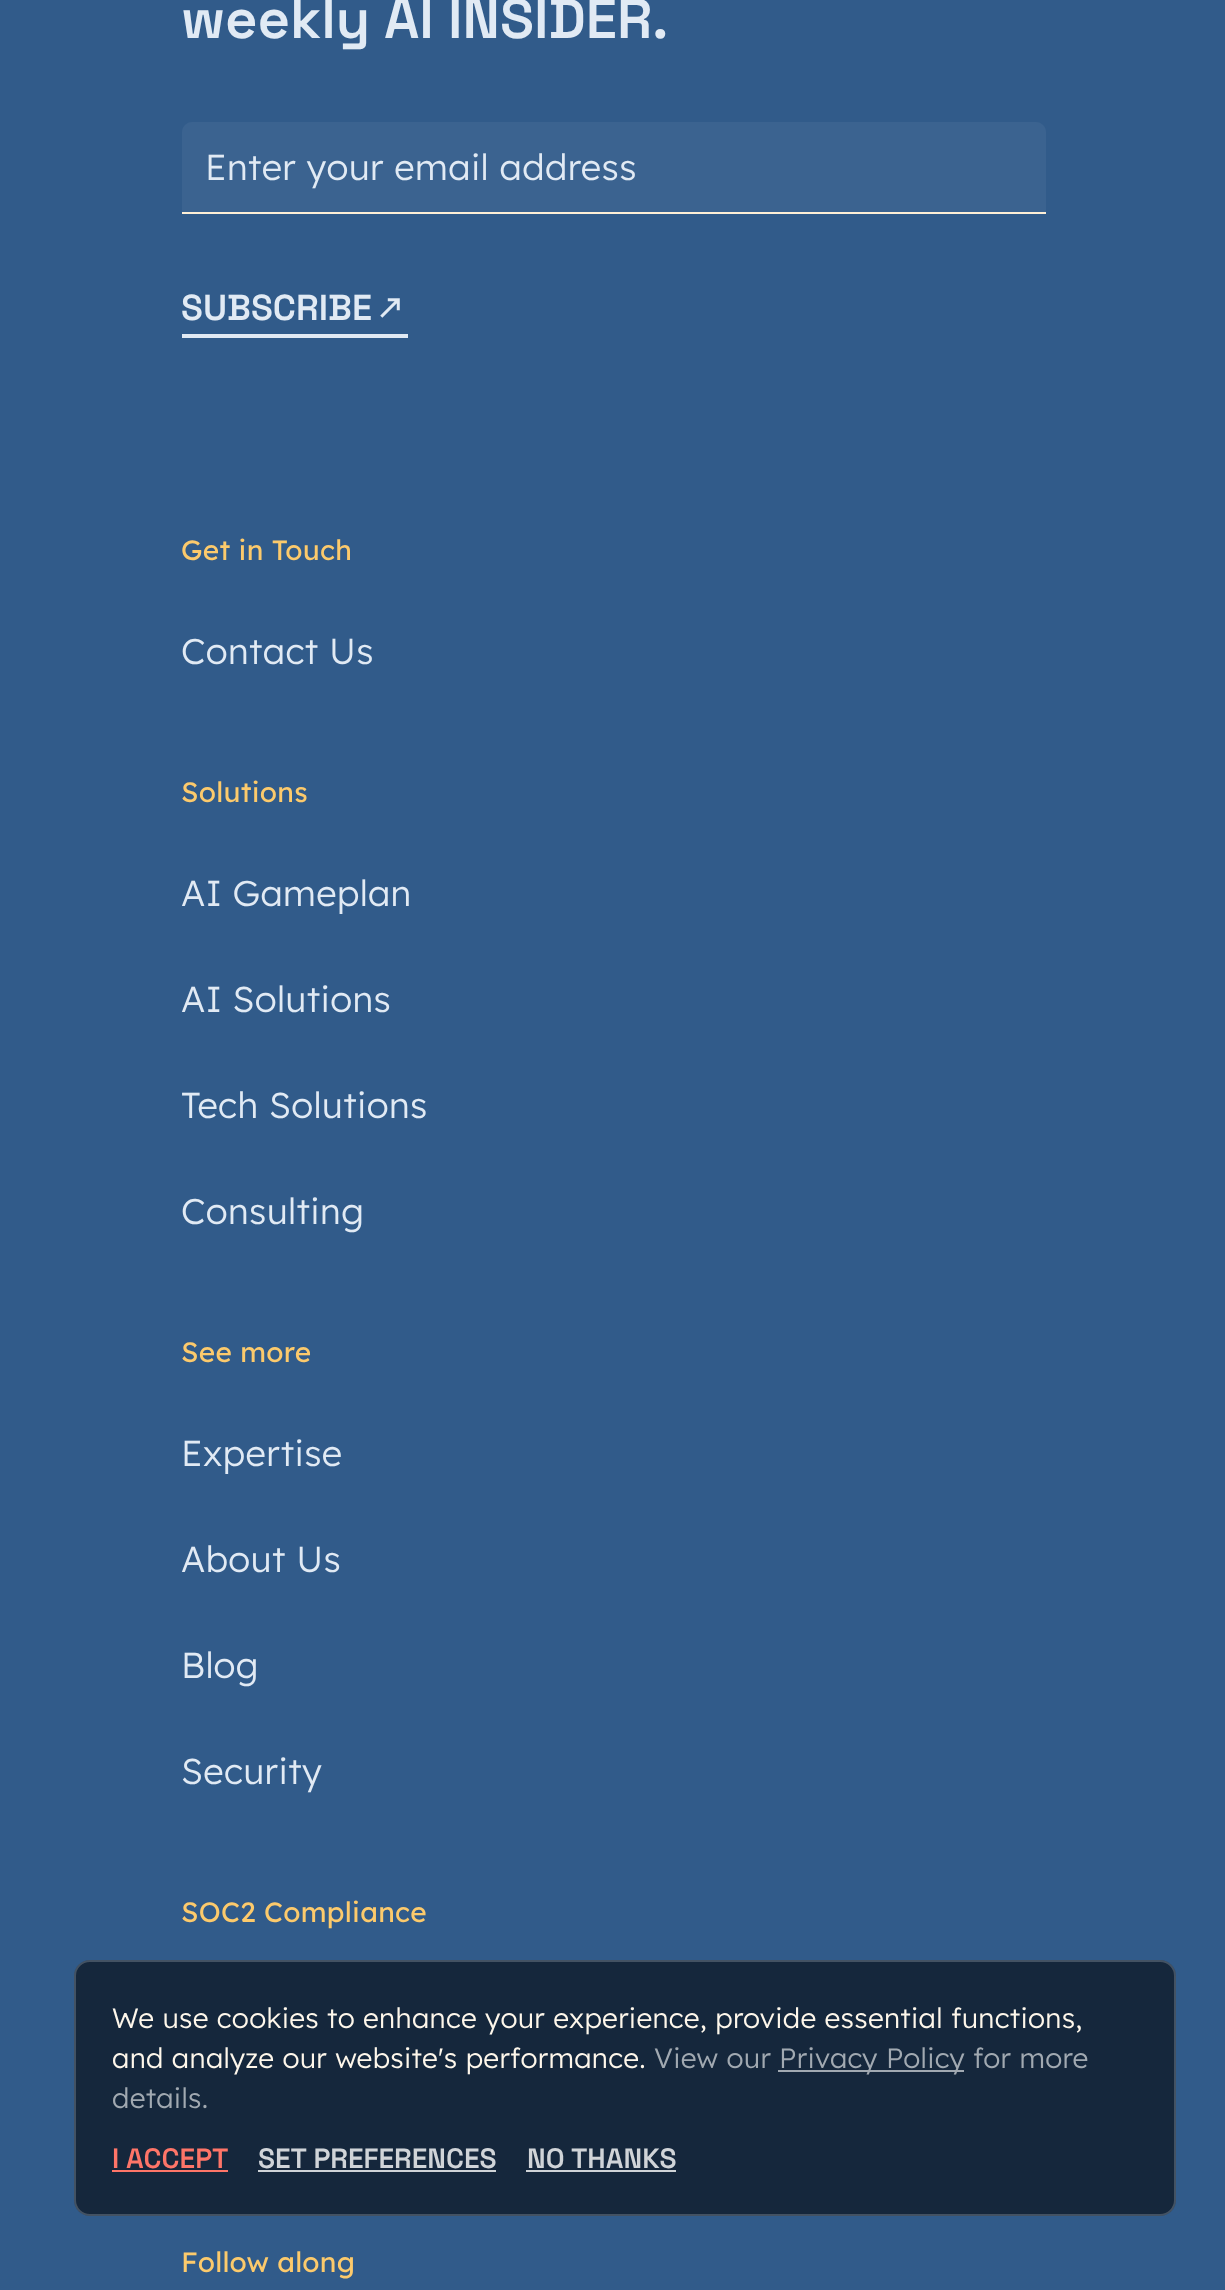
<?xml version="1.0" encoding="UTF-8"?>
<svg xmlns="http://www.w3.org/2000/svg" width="1225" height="2290">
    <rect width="100%" height="100%" fill="#315B8A"/>
    <text x="181" y="38" font-family="Space Grotesk" font-size="56" font-weight="600" fill="#E1EAF4">weekly AI INSIDER.</text>
    <path d="M 192 122 H 1036 C 1041.5 122 1046 126.5 1046 132 V 214 H 182 V 132 C 182 126.5 186.5 122 192 122 Z" fill="#3B6390"/>
    <rect x="182" y="212" width="864" height="2" fill="#FEF0D7"/>
    <text x="205" y="180" font-family="Lexend Deca" font-size="36" font-weight="300" letter-spacing="0.4" fill="#E1EAF4">Enter your email address</text>
    <rect x="182" y="334" width="226" height="4" fill="#E1EAF4"/>
    <text x="181" y="320" font-family="Space Grotesk" font-size="36" font-weight="600" fill="#E1EAF4">SUBSCRIBE</text>
    <image x="380" y="298" width="20" height="20" href="img_01.png"/>
    <text x="181" y="560" font-family="Lexend Deca" font-size="28" letter-spacing="0.28" fill="#FCCA6C">Get in Touch</text>
    <text x="181" y="664" font-family="Lexend Deca" font-size="36" font-weight="300" letter-spacing="0.4" fill="#E1EAF4">Contact Us</text>
    <text x="181" y="802" font-family="Lexend Deca" font-size="28" letter-spacing="0.28" fill="#FCCA6C">Solutions</text>
    <text x="181" y="906" font-family="Lexend Deca" font-size="36" font-weight="300" letter-spacing="0.4" fill="#E1EAF4">AI Gameplan</text>
    <text x="181" y="1012" font-family="Lexend Deca" font-size="36" font-weight="300" letter-spacing="0.4" fill="#E1EAF4">AI Solutions</text>
    <text x="181" y="1118" font-family="Lexend Deca" font-size="36" font-weight="300" letter-spacing="0.4" fill="#E1EAF4">Tech Solutions</text>
    <text x="181" y="1224" font-family="Lexend Deca" font-size="36" font-weight="300" letter-spacing="0.4" fill="#E1EAF4">Consulting</text>
    <text x="181" y="1362" font-family="Lexend Deca" font-size="28" letter-spacing="0.28" fill="#FCCA6C">See more</text>
    <text x="181" y="1466" font-family="Lexend Deca" font-size="36" font-weight="300" letter-spacing="0.4" fill="#E1EAF4">Expertise</text>
    <text x="181" y="1572" font-family="Lexend Deca" font-size="36" font-weight="300" letter-spacing="0.4" fill="#E1EAF4">About Us</text>
    <text x="181" y="1678" font-family="Lexend Deca" font-size="36" font-weight="300" letter-spacing="0.4" fill="#E1EAF4">Blog</text>
    <text x="181" y="1784" font-family="Lexend Deca" font-size="36" font-weight="300" letter-spacing="0.4" fill="#E1EAF4">Security</text>
    <text x="181" y="1922" font-family="Lexend Deca" font-size="28" letter-spacing="0.28" fill="#FCCA6C">SOC2 Compliance</text>
    <text x="181" y="2272" font-family="Lexend Deca" font-size="28" letter-spacing="0.28" fill="#FCCA6C">Follow along</text>
    <rect x="74" y="1960" width="1102" height="256" rx="16" fill="#15273C"/>
    <rect x="75" y="1961" width="1100" height="254" rx="15" fill="none" stroke="#FFFFFF" stroke-opacity="0.2" stroke-width="2"/>
    <text font-family="Lexend Deca" font-size="28" font-weight="300" letter-spacing="0.28" fill="#FEF7EB">
        <tspan x="112" y="2028">We use cookies to enhance your experience, provide essential functions,</tspan>
        <tspan x="112" y="2068">and analyze our website's performance.</tspan>
    </text>
    <text x="654" y="2068" font-family="Lexend Deca" font-size="28" font-weight="300" letter-spacing="0.28" fill="#A1A9B1">View our</text>
    <rect x="778" y="2070" width="186" height="2" fill="#A1A9B1"/>
    <text x="779" y="2068" font-family="Lexend Deca" font-size="28" font-weight="300" letter-spacing="0.28" fill="#A1A9B1">Privacy Policy</text>
    <text x="973" y="2068" font-family="Lexend Deca" font-size="28" font-weight="300" letter-spacing="0.28" fill="#A1A9B1">for more</text>
    <text x="112" y="2108" font-family="Lexend Deca" font-size="28" font-weight="300" letter-spacing="0.28" fill="#A1A9B1">details.</text>
    <text x="112" y="2168" font-family="Space Grotesk" font-size="28" font-weight="600" fill="#FE7568">I ACCEPT</text>
    <rect x="112" y="2170" width="116" height="2" fill="#FE7568"/>
    <text x="258" y="2168" font-family="Space Grotesk" font-size="28" font-weight="600" fill="#D0D4D8">SET PREFERENCES</text>
    <rect x="258" y="2170" width="238" height="2" fill="#D0D4D8"/>
    <text x="527" y="2168" font-family="Space Grotesk" font-size="28" font-weight="600" fill="#D0D4D8">NO THANKS</text>
    <rect x="526" y="2170" width="150" height="2" fill="#D0D4D8"/>
</svg>
